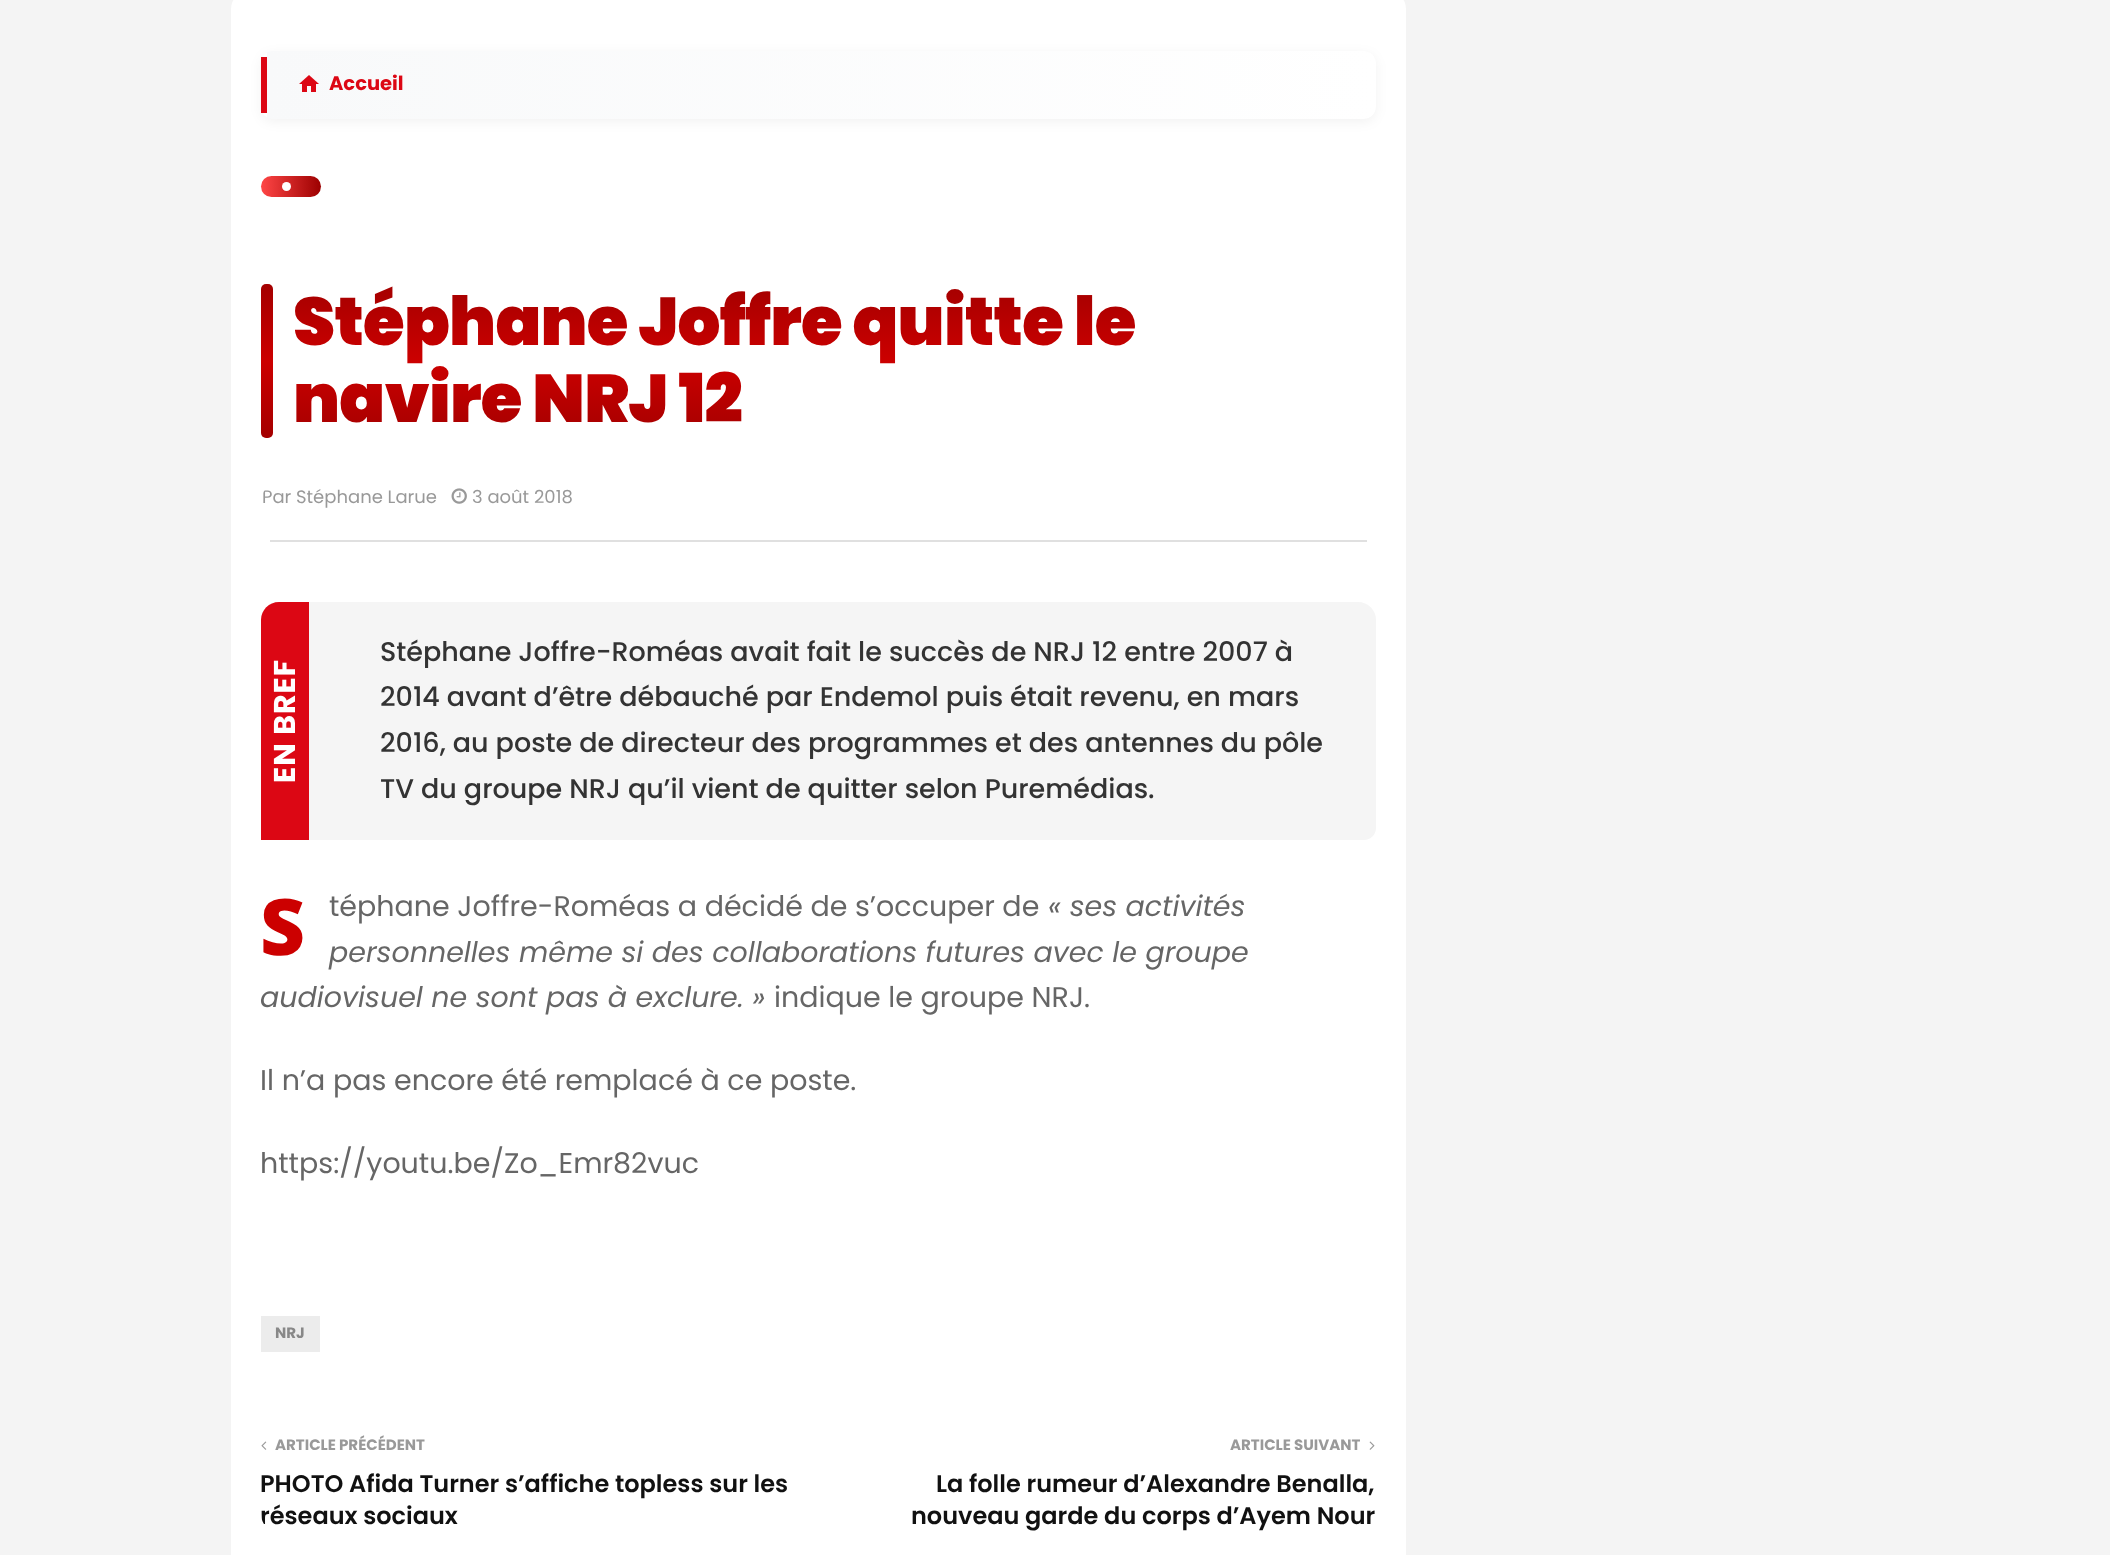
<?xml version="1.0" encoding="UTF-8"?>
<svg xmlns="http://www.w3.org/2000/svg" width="2110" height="1555">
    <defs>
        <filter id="blur1" x="-50%" y="-200%" width="200%" height="500%"><feGaussianBlur stdDeviation="6"/></filter>
        <clipPath id="clip1"><rect x="261" y="51" width="1115" height="68" rx="12"/></clipPath>
        <linearGradient id="g1" gradientUnits="userSpaceOnUse" x1="-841" y1="85" x2="267" y2="85"><stop offset="0" stop-color="#F8F9FA"/><stop offset="1" stop-color="#FFFFFF"/></linearGradient>
        <linearGradient id="g2" gradientUnits="userSpaceOnUse" x1="267" y1="85" x2="1376" y2="85"><stop offset="0" stop-color="#F8F9FA"/><stop offset="1" stop-color="#FFFFFF"/></linearGradient>
        <linearGradient id="g3" gradientUnits="userSpaceOnUse" x1="818" y1="283" x2="818" y2="439"><stop offset="0" stop-color="#A40000"/><stop offset="0.5" stop-color="#CC0000"/><stop offset="1" stop-color="#A40000"/></linearGradient>
        <linearGradient id="g4" gradientUnits="userSpaceOnUse" x1="261" y1="186" x2="321" y2="186"><stop offset="0" stop-color="#FF4646"/><stop offset="1" stop-color="#9C0000"/></linearGradient>
        <linearGradient id="g5" gradientUnits="userSpaceOnUse" x1="267" y1="284" x2="267" y2="438"><stop offset="0" stop-color="#A40000"/><stop offset="0.5" stop-color="#CC0000"/><stop offset="1" stop-color="#A40000"/></linearGradient>
        <clipPath id="clip2"><path d="M 279 483 H 1357.5 C 1367.5 483 1375.5 491 1375.5 501 V 523.5 C 1375.5 532.5 1367.5 540 1357.5 540 H 279 C 269 540 261 532.5 261 523.5 V 501 C 261 491 269 483 279 483 Z"/></clipPath>
        <clipPath id="clip3"><rect x="261" y="1428" width="557" height="104" rx="18"/></clipPath>
    </defs>
    <rect width="100%" height="100%" fill="#F4F4F4"/>
    <rect x="231" y="-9" width="1175" height="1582" rx="18" fill="#FFFFFF"/>
    <rect x="261" y="54" width="1115" height="68" rx="12" fill="#000000" fill-opacity="0.05" filter="url(#blur1)"/>
    <g clip-path="url(#clip1)">
        <rect x="262" y="51" width="5" height="68" fill="url(#g1)"/>
        <path d="M 267 51 H 1364 C 1370.5 51 1376 56.5 1376 63 V 107 C 1376 113.5 1370.5 119 1364 119 H 267 Z" fill="url(#g2)"/>
    </g>
    <rect x="261" y="57" width="6" height="56" fill="#DC0714"/>
    <image x="299" y="75" width="20" height="17" href="img_01.png"/>
    <text x="329" y="90" font-family="Poppins" font-size="19.5" font-weight="700" fill="#DC0714">Accueil</text>
    <rect x="261" y="176" width="60" height="21" rx="10.5" fill="url(#g4)"/>
    <circle cx="286.5" cy="186.5" r="4.5" fill="#FFFFFF"/>
    <rect x="261" y="284" width="12" height="154" rx="5" fill="url(#g5)"/>
    <text font-family="Poppins" font-size="67.5" font-weight="900" letter-spacing="-0.75" fill="url(#g3)">
        <tspan x="293" y="345">Stéphane Joffre quitte le</tspan>
        <tspan x="293" y="422">navire NRJ 12</tspan>
    </text>
    <rect x="270" y="540" width="1097" height="2" fill="#E0E0E0"/>
    <g clip-path="url(#clip2)">
        <text x="262" y="503" font-family="Poppins" font-size="18" fill="#999999">Par</text>
    </g>
    <text x="296" y="503" font-family="Poppins" font-size="18" fill="#999999">Stéphane Larue</text>
    <image x="451" y="488" width="16" height="16" href="img_02.png"/>
    <text x="472" y="503" font-family="Poppins" font-size="18" fill="#999999">3 août 2018</text>
    <path d="M 279 602 H 1358 C 1368 602 1376 610 1376 620 V 828 C 1376 834.5 1370.5 840 1364 840 H 261 V 620 C 261 610 269 602 279 602 Z" fill="#F5F5F5"/>
    <path d="M 279 602 H 309 V 840 H 261 V 620 C 261 610 269 602 279 602 Z" fill="#DC0714"/>
    <text x="380" y="661" font-family="Poppins" font-size="27" font-weight="500" fill="#333333">Stéphane Joffre-Roméas avait fait le succès de NRJ 12 entre 2007 à</text>
    <text x="295" y="783" transform="rotate(-90 295 783)" font-family="Poppins" font-size="30" font-weight="700" letter-spacing="1" fill="#FFFFFF">EN BREF</text>
    <text font-family="Poppins" font-size="27" font-weight="500" fill="#333333">
        <tspan x="380" y="706">2014 avant d’être débauché par Endemol puis était revenu, en mars</tspan>
        <tspan x="380" y="752">2016, au poste de directeur des programmes et des antennes du pôle</tspan>
        <tspan x="380" y="798">TV du groupe NRJ qu’il vient de quitter selon Puremédias.</tspan>
    </text>
    <text x="260" y="955" font-family="Noto Sans" font-size="78" font-weight="900" fill="#CC0000">S</text>
    <text x="329" y="916" font-family="Poppins" font-size="28.5" fill="#666666">téphane Joffre-Roméas a décidé de s’occuper de</text>
    <text x="1048" y="916" font-family="Poppins" font-size="28.5" font-style="italic" fill="#666666">« ses activités</text>
    <text x="329" y="962" font-family="Poppins" font-size="28.5" font-style="italic" fill="#666666">personnelles même si des collaborations futures avec le groupe</text>
    <text x="260" y="1007" font-family="Poppins" font-size="28.5" font-style="italic" fill="#666666">audiovisuel ne sont pas à exclure. »</text>
    <text x="774" y="1007" font-family="Poppins" font-size="28.5" fill="#666666">indique le groupe NRJ.</text>
    <text x="260" y="1090" font-family="Poppins" font-size="28.5" fill="#666666">Il n’a pas encore été remplacé à ce poste.</text>
    <text x="260" y="1173" font-family="Poppins" font-size="28.5" fill="#666666">https://youtu.be/Zo_Emr82vuc</text>
    <rect x="261" y="1316" width="59" height="36" fill="#ECECEC"/>
    <text x="275" y="1338" font-family="Poppins" font-size="15" font-weight="700" fill="#888888">NRJ</text>
    <image x="261" y="1441" width="6" height="9" href="img_03.png"/>
    <text x="275" y="1450" font-family="Poppins" font-size="15" font-weight="700" fill="#999999">ARTICLE PRÉCÉDENT</text>
    <text x="260" y="1492" font-family="Poppins" font-size="24" font-weight="600" fill="#111111">PHOTO Afida Turner s’affiche topless sur les</text>
    <g clip-path="url(#clip3)">
        <text x="260" y="1524" font-family="Poppins" font-size="24" font-weight="600" fill="#111111">réseaux sociaux</text>
    </g>
    <text x="1230" y="1450" font-family="Poppins" font-size="15" font-weight="700" fill="#999999">ARTICLE SUIVANT</text>
    <image x="1369" y="1441" width="6" height="9" href="img_04.png"/>
    <text x="936" y="1492" font-family="Poppins" font-size="24" font-weight="600" fill="#111111">La folle rumeur d’Alexandre Benalla,</text>
    <text x="911" y="1524" font-family="Poppins" font-size="24" font-weight="600" fill="#111111">nouveau garde du corps d’Ayem Nour</text>
</svg>
